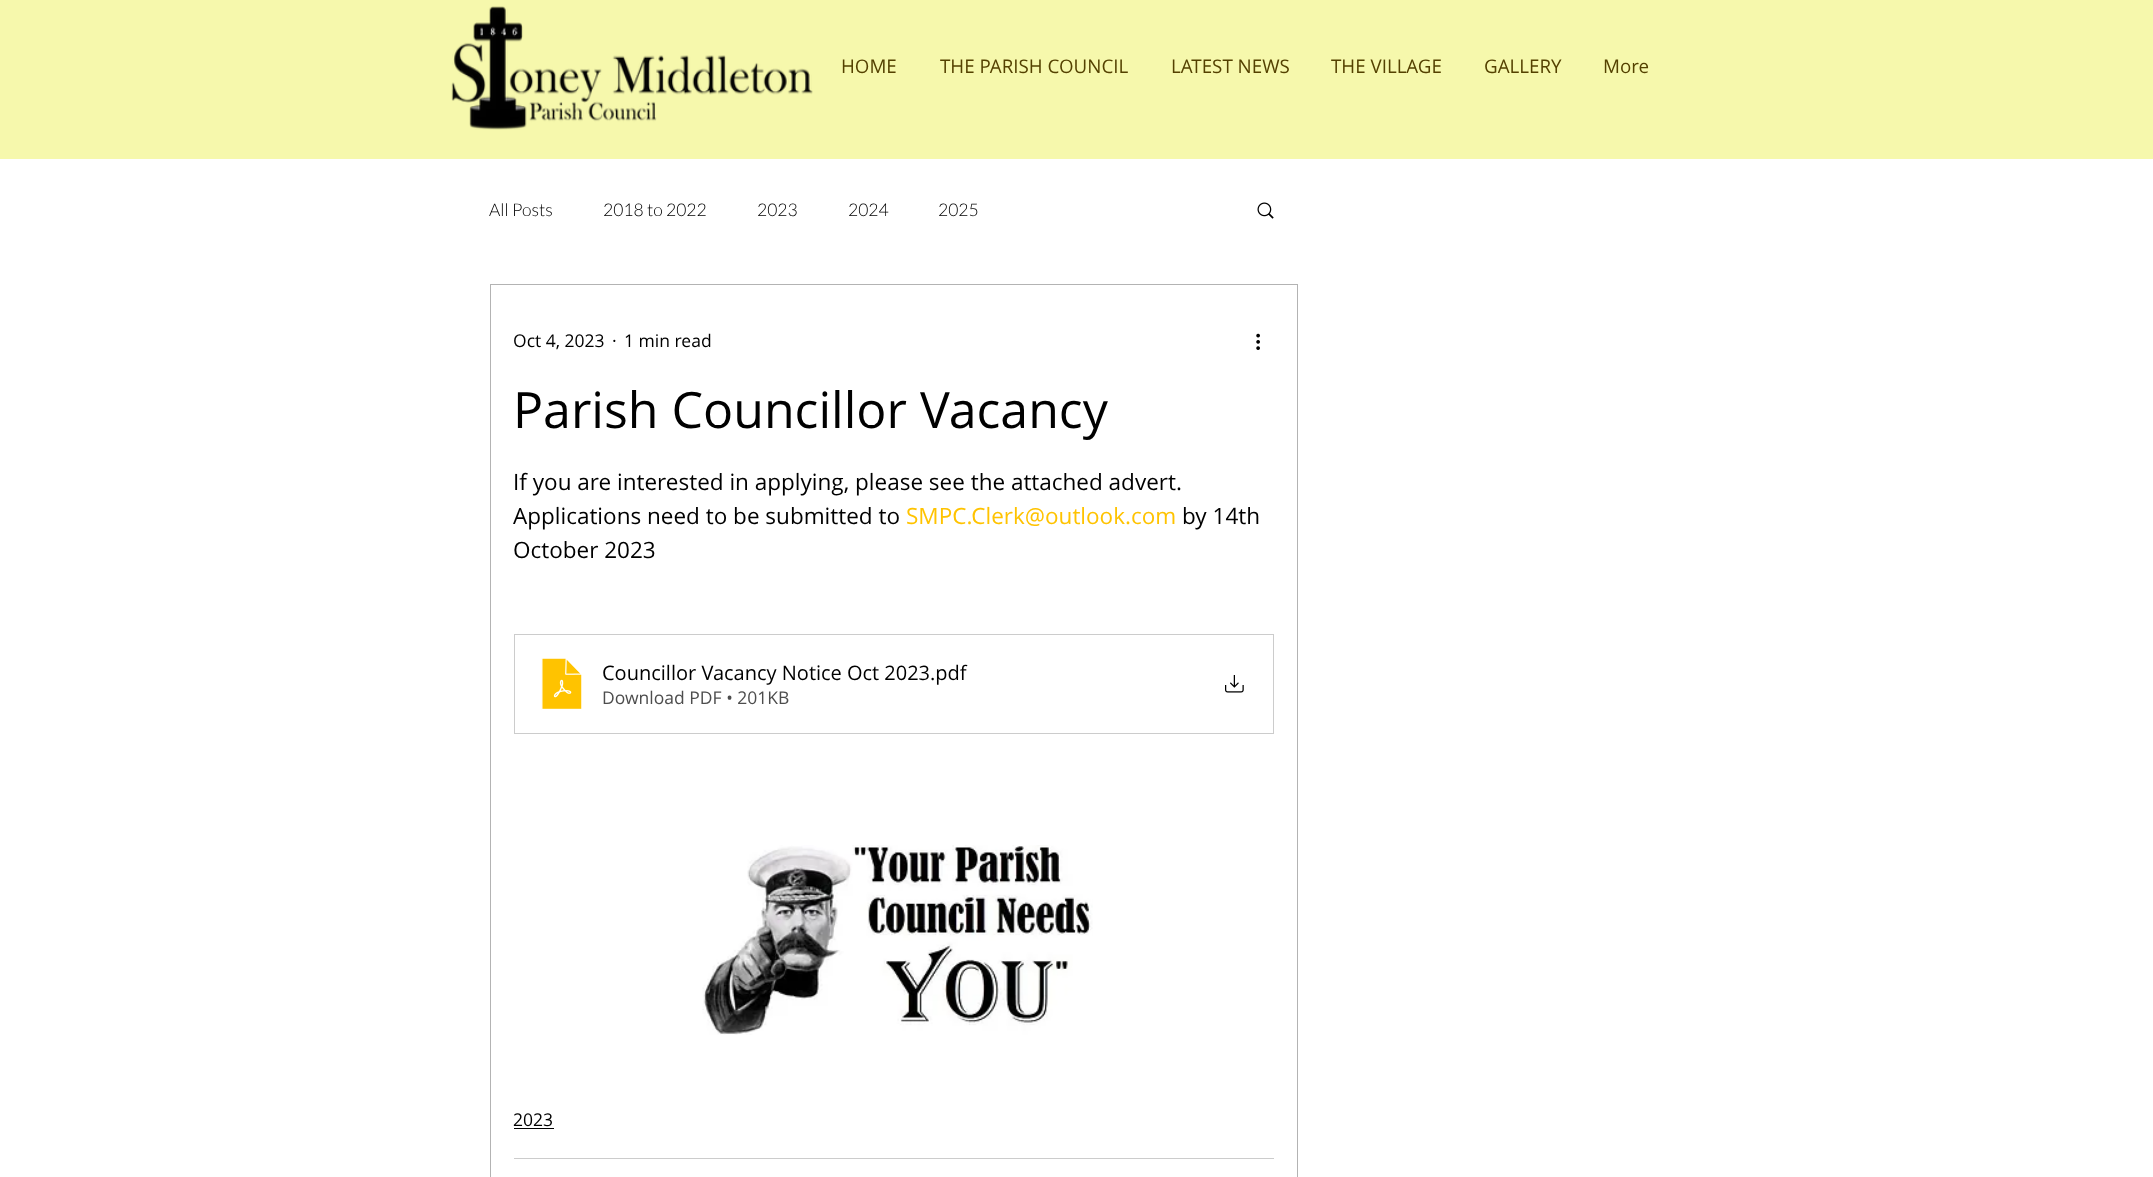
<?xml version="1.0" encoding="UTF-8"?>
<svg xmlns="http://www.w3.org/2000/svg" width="2153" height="1177">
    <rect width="100%" height="100%" fill="#FFFFFF"/>
    <rect x="0" y="0" width="2153" height="159" fill="#F6F8AC"/>
    <image x="451" y="6" width="362" height="124" href="img_01.png"/>
    <text x="841" y="73" font-family="Open Sans" font-size="18.75" fill="#544100">HOME</text>
    <text x="940" y="73" font-family="Open Sans" font-size="18.75" fill="#544100">THE PARISH COUNCIL</text>
    <text x="1171" y="73" font-family="Open Sans" font-size="18.75" fill="#544100">LATEST NEWS</text>
    <text x="1331" y="73" font-family="Open Sans" font-size="18.75" fill="#544100">THE VILLAGE</text>
    <text x="1484" y="73" font-family="Open Sans" font-size="18.75" fill="#544100">GALLERY</text>
    <text x="1603" y="73" font-family="Open Sans" font-size="18.75" fill="#544100">More</text>
    <text x="489" y="216" font-family="Lato" font-size="17.5" font-weight="300" fill="#000000">All Posts</text>
    <text x="603" y="216" font-family="Lato" font-size="17.5" font-weight="300" fill="#000000">2018 to 2022</text>
    <text x="757" y="216" font-family="Lato" font-size="17.5" font-weight="300" fill="#000000">2023</text>
    <text x="848" y="216" font-family="Lato" font-size="17.5" font-weight="300" fill="#000000">2024</text>
    <text x="938" y="216" font-family="Lato" font-size="17.5" font-weight="300" fill="#000000">2025</text>
    <image x="1257" y="202" width="17" height="17" href="img_02.png"/>
    <rect x="490.5" y="284.5" width="807" height="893" fill="none" stroke="#B3B3B3"/>
    <text x="513" y="347" font-family="Open Sans" font-size="17.5" fill="#000000">Oct 4, 2023</text>
    <text x="612" y="347" font-family="Open Sans" font-size="17.5" fill="#000000">·</text>
    <text x="624" y="347" font-family="Open Sans" font-size="17.5" fill="#000000">1 min read</text>
    <image x="1256" y="333" width="4" height="17" href="img_03.png"/>
    <text x="513" y="428" font-family="Open Sans" font-size="50" fill="#000000">Parish Councillor Vacancy</text>
    <text font-family="Open Sans" font-size="22.5" fill="#000000">
        <tspan x="513" y="490">If you are interested in applying, please see the attached advert.</tspan>
        <tspan x="513" y="524">Applications need to be submitted to</tspan>
    </text>
    <text x="906" y="524" font-family="Open Sans" font-size="22.5" fill="#FFC300">SMPC.Clerk@outlook.com</text>
    <text x="1182" y="524" font-family="Open Sans" font-size="22.5" fill="#000000">by 14th</text>
    <text x="513" y="558" font-family="Open Sans" font-size="22.5" fill="#000000">October 2023</text>
    <rect x="514.5" y="634.5" width="759" height="99" fill="none" stroke="#CCCCCC"/>
    <image x="541" y="658" width="41" height="52" href="img_04.png"/>
    <text x="602" y="680" font-family="Open Sans" font-size="20" fill="#000000">Councillor Vacancy Notice Oct 2023</text>
    <text x="930" y="680" font-family="Open Sans" font-size="20" fill="#000000">.pdf</text>
    <text x="602" y="704" font-family="Open Sans" font-size="17.5" fill="#4D4D4D">Download PDF • 201KB</text>
    <image x="1225" y="675" width="19" height="18" href="img_05.png"/>
    <image x="702" y="845" width="391" height="190" href="img_06.png"/>
    <text x="513" y="1126" font-family="Open Sans" font-size="17.5" fill="#000000">2023</text>
    <rect x="514" y="1128" width="40" height="1" fill="#000000"/>
    <rect x="514" y="1158" width="760" height="1" fill="#CCCCCC"/>
</svg>
